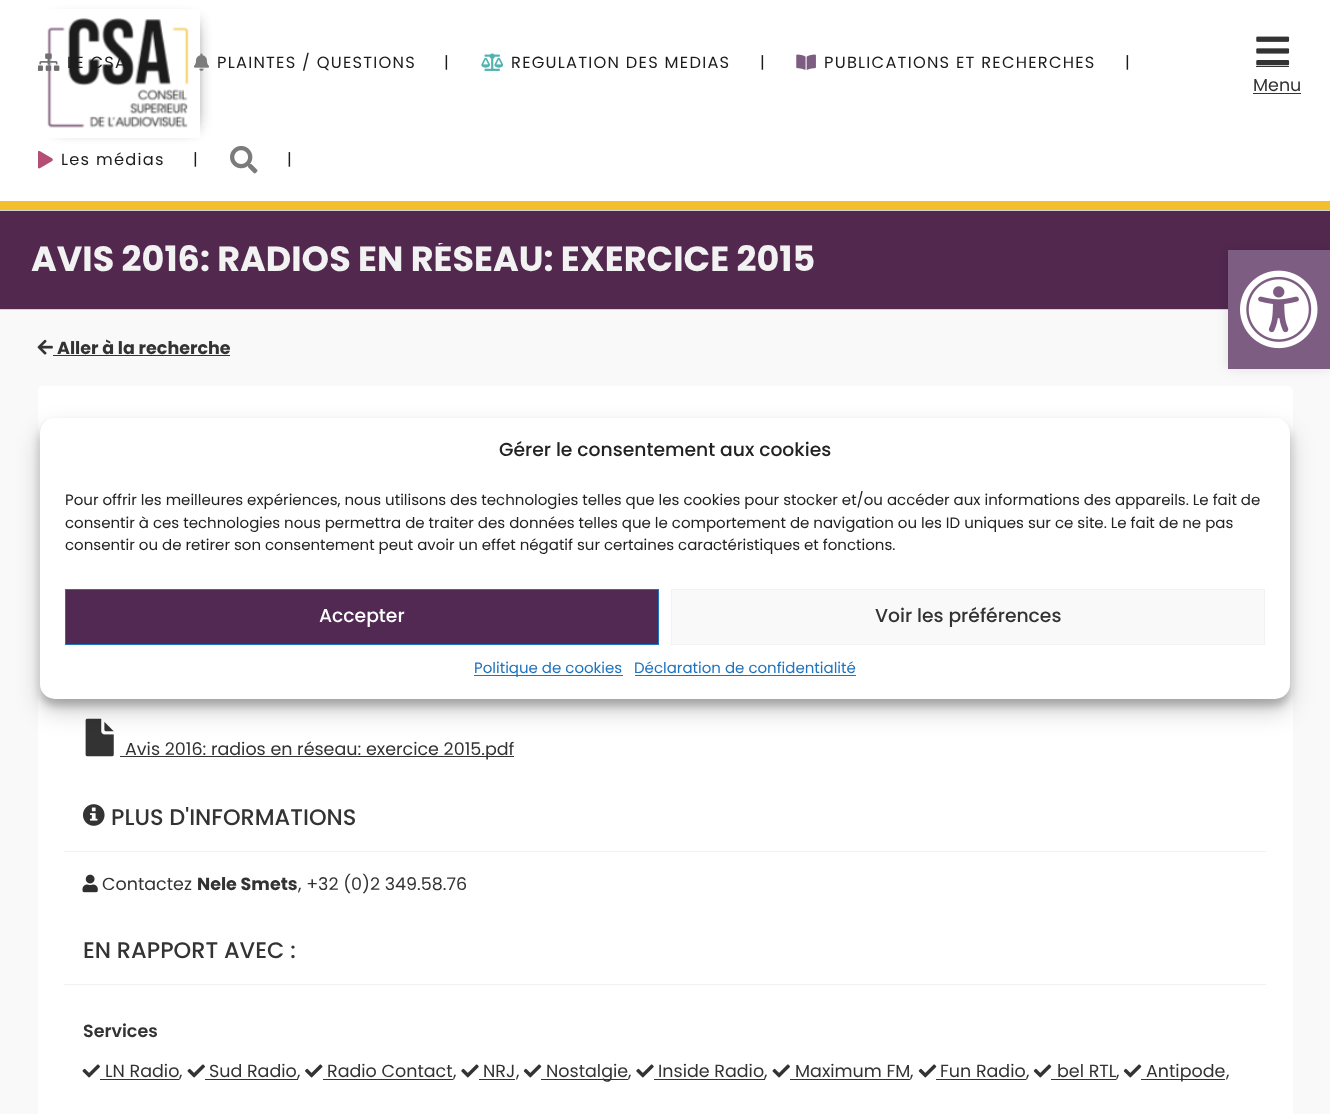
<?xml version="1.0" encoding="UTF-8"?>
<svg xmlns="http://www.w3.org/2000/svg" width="1330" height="1114">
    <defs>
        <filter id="blur1" x="-50%" y="-200%" width="200%" height="500%"><feGaussianBlur stdDeviation="8"/></filter>
        <clipPath id="clip1"><rect x="31" y="243" width="1268" height="35"/></clipPath>
        <filter id="blur2" x="-50%" y="-200%" width="200%" height="500%"><feGaussianBlur stdDeviation="6"/></filter>
        <filter id="blur3" x="-50%" y="-200%" width="200%" height="500%"><feGaussianBlur stdDeviation="4"/></filter>
        <filter id="blur4" x="-50%" y="-200%" width="200%" height="500%"><feGaussianBlur stdDeviation="12.5"/></filter>
    </defs>
    <rect width="100%" height="100%" fill="#FFFFFF"/>
    <rect x="0" y="201" width="1330" height="9" fill="#F5BE2F"/>
    <rect x="56" y="23" width="138" height="103" fill="#333333" filter="url(#blur1)"/>
    <rect x="38" y="9" width="162" height="129" fill="#FFFFFF"/>
    <image x="47" y="17" width="142" height="111" href="img_01.png"/>
    <image x="38" y="53" width="22" height="18" href="img_02.png"/>
    <text x="67" y="68" font-family="Poppins" font-size="16.25" letter-spacing="1.25" fill="#1C1C1C">LE CSA</text>
    <image x="194" y="53" width="16" height="18" href="img_03.png"/>
    <text x="217" y="68" font-family="Poppins" font-size="16.25" letter-spacing="1.25" fill="#1C1C1C">PLAINTES / QUESTIONS</text>
    <text x="444" y="68" font-family="Poppins" font-size="16.25" letter-spacing="1.25" fill="#1C1C1C">|</text>
    <image x="481" y="53" width="23" height="18" href="img_04.png"/>
    <text x="511" y="68" font-family="Poppins" font-size="16.25" letter-spacing="1.25" fill="#1C1C1C">REGULATION DES MEDIAS</text>
    <text x="760" y="68" font-family="Poppins" font-size="16.25" letter-spacing="1.25" fill="#1C1C1C">|</text>
    <image x="796" y="54" width="20" height="16" href="img_05.png"/>
    <text x="824" y="68" font-family="Poppins" font-size="16.25" letter-spacing="1.25" fill="#1C1C1C">PUBLICATIONS ET RECHERCHES</text>
    <text x="1125" y="68" font-family="Poppins" font-size="16.25" letter-spacing="1.25" fill="#1C1C1C">|</text>
    <image x="38" y="151" width="15" height="18" href="img_06.png"/>
    <text x="61" y="165" font-family="Poppins" font-size="16.25" letter-spacing="1.25" fill="#1C1C1C">Les médias</text>
    <text x="193" y="165" font-family="Poppins" font-size="16.25" letter-spacing="1.25" fill="#1C1C1C">|</text>
    <image x="230" y="145" width="28" height="29" href="img_07.png"/>
    <text x="287" y="165" font-family="Poppins" font-size="16.25" letter-spacing="1.25" fill="#1C1C1C">|</text>
    <image x="1256" y="36" width="34" height="30" href="img_08.png"/>
    <rect x="1256" y="66" width="33" height="1" fill="#333333"/>
    <text x="1253" y="91" font-family="Poppins" font-size="17.5" fill="#333333">Menu</text>
    <rect x="1253" y="93" width="48" height="1" fill="#333333"/>
    <rect x="0" y="211" width="1330" height="98" fill="#52284E"/>
    <rect x="0" y="210" width="1330" height="1" fill="#D2D3D4"/>
    <rect x="0" y="309" width="1228" height="1" fill="#D2D3D4"/>
    <g clip-path="url(#clip1)">
        <text x="31" y="271" font-family="Poppins" font-size="35" font-weight="700" fill="#F2F2F2">AVIS 2016: RADIOS EN RÉSEAU: EXERCICE 2015</text>
    </g>
    <rect x="0" y="310" width="1330" height="804" fill="#F9F9F9"/>
    <image x="37" y="339" width="16" height="16" href="img_09.png"/>
    <text x="57" y="354" font-family="Poppins" font-size="17.5" font-weight="700" fill="#333333">Aller à la recherche</text>
    <rect x="53" y="355" width="177" height="1" fill="#333333"/>
    <rect x="38" y="386" width="1255" height="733" rx="5" fill="#FFFFFF"/>
    <image x="85" y="718" width="29" height="39" href="img_10.png"/>
    <rect x="120" y="756" width="394" height="1" fill="#333333"/>
    <text x="125" y="755" font-family="Poppins" font-size="17.5" fill="#333333">Avis 2016: radios en réseau: exercice 2015.pdf</text>
    <rect x="64" y="851" width="1202" height="1" fill="#F1F1F1"/>
    <image x="82" y="804" width="23" height="22" href="img_11.png"/>
    <text x="111" y="825" font-family="Poppins" font-size="22.5" font-weight="500" fill="#333333">PLUS D'INFORMATIONS</text>
    <image x="82" y="874" width="16" height="19" href="img_12.png"/>
    <text x="102" y="890" font-family="Poppins" font-size="17.5" fill="#333333">Contactez</text>
    <text x="197" y="890" font-family="Poppins" font-size="17.5" font-weight="700" fill="#333333">Nele Smets</text>
    <text x="298" y="890" font-family="Poppins" font-size="17.5" fill="#333333">, +32 (0)2 349.58.76</text>
    <rect x="64" y="984" width="1202" height="1" fill="#F1F1F1"/>
    <text x="83" y="958" font-family="Poppins" font-size="22.5" font-weight="500" fill="#333333">EN RAPPORT AVEC :</text>
    <text x="83" y="1037" font-family="Poppins" font-size="17.5" font-weight="600" fill="#333333">Services</text>
    <image x="82" y="1064" width="18" height="14" href="img_13.png"/>
    <text x="105" y="1077" font-family="Poppins" font-size="17.5" fill="#333333">LN Radio</text>
    <rect x="100" y="1079" width="79" height="1" fill="#333333"/>
    <text x="179" y="1077" font-family="Poppins" font-size="17.5" fill="#333333">,</text>
    <image x="187" y="1064" width="18" height="14" href="img_13.png"/>
    <text x="209" y="1077" font-family="Poppins" font-size="17.5" fill="#333333">Sud Radio</text>
    <rect x="205" y="1079" width="93" height="1" fill="#333333"/>
    <text x="297" y="1077" font-family="Poppins" font-size="17.5" fill="#333333">,</text>
    <image x="305" y="1064" width="18" height="14" href="img_14.png"/>
    <text x="327" y="1077" font-family="Poppins" font-size="17.5" fill="#333333">Radio Contact</text>
    <rect x="323" y="1079" width="130" height="1" fill="#333333"/>
    <text x="453" y="1077" font-family="Poppins" font-size="17.5" fill="#333333">,</text>
    <image x="461" y="1064" width="18" height="14" href="img_15.png"/>
    <text x="483" y="1077" font-family="Poppins" font-size="17.5" fill="#333333">NRJ</text>
    <rect x="479" y="1079" width="36" height="1" fill="#333333"/>
    <text x="516" y="1077" font-family="Poppins" font-size="17.5" fill="#333333">,</text>
    <image x="523" y="1064" width="19" height="14" href="img_16.png"/>
    <rect x="541" y="1079" width="87" height="1" fill="#333333"/>
    <text x="546" y="1077" font-family="Poppins" font-size="17.5" fill="#333333">Nostalgie</text>
    <text x="628" y="1077" font-family="Poppins" font-size="17.5" fill="#333333">,</text>
    <image x="636" y="1064" width="18" height="14" href="img_15.png"/>
    <text x="658" y="1077" font-family="Poppins" font-size="17.5" fill="#333333">Inside Radio</text>
    <rect x="654" y="1079" width="111" height="1" fill="#333333"/>
    <text x="764" y="1077" font-family="Poppins" font-size="17.5" fill="#333333">,</text>
    <image x="772" y="1064" width="18" height="14" href="img_13.png"/>
    <text x="795" y="1077" font-family="Poppins" font-size="17.5" fill="#333333">Maximum FM</text>
    <rect x="790" y="1079" width="120" height="1" fill="#333333"/>
    <text x="910" y="1077" font-family="Poppins" font-size="17.5" fill="#333333">,</text>
    <image x="918" y="1064" width="19" height="14" href="img_16.png"/>
    <text x="940" y="1077" font-family="Poppins" font-size="17.5" fill="#333333">Fun Radio</text>
    <rect x="936" y="1079" width="90" height="1" fill="#333333"/>
    <text x="1026" y="1077" font-family="Poppins" font-size="17.5" fill="#333333">,</text>
    <image x="1033" y="1064" width="19" height="14" href="img_16.png"/>
    <text x="1057" y="1077" font-family="Poppins" font-size="17.5" fill="#333333">bel RTL</text>
    <rect x="1051" y="1079" width="65" height="1" fill="#333333"/>
    <text x="1116" y="1077" font-family="Poppins" font-size="17.5" fill="#333333">,</text>
    <image x="1123" y="1064" width="19" height="14" href="img_16.png"/>
    <rect x="1141" y="1079" width="84" height="1" fill="#333333"/>
    <text x="1146" y="1077" font-family="Poppins" font-size="17.5" fill="#333333">Antipode</text>
    <text x="1226" y="1077" font-family="Poppins" font-size="17.5" fill="#333333">,</text>
    <rect x="1228" y="250" width="102" height="119" fill="#000000" fill-opacity="0.1" filter="url(#blur2)"/>
    <rect x="1228" y="250" width="102" height="119" fill="#7D5D81"/>
    <image x="1240" y="270" width="78" height="79" href="img_17.png"/>
    <rect x="40" y="425" width="1250" height="281" rx="15" fill="#000000" fill-opacity="0.23" filter="url(#blur3)"/>
    <rect x="40" y="430" width="1250" height="281" rx="15" fill="#000000" fill-opacity="0.19" filter="url(#blur4)"/>
    <rect x="40" y="418" width="1250" height="281" rx="15" fill="#FFFFFF"/>
    <text x="499" y="456" font-family="Poppins" font-size="18.75" font-weight="500" fill="#222222">Gérer le consentement aux cookies</text>
    <text font-family="Poppins" font-size="15" fill="#222222">
        <tspan x="65" y="505">Pour offrir les meilleures expériences, nous utilisons des technologies telles que les cookies pour stocker et/ou accéder aux informations des appareils. Le fait de</tspan>
        <tspan x="65" y="528">consentir à ces technologies nous permettra de traiter des données telles que le comportement de navigation ou les ID uniques sur ce site. Le fait de ne pas</tspan>
        <tspan x="65" y="550">consentir ou de retirer son consentement peut avoir un effet négatif sur certaines caractéristiques et fonctions.</tspan>
    </text>
    <rect x="65.5" y="589.5" width="593" height="55" fill="#512953" stroke="#1E73BE"/>
    <text x="319" y="622" font-family="Poppins" font-size="18.75" font-weight="500" fill="#FFFFFF">Accepter</text>
    <rect x="671.5" y="589.5" width="593" height="55" fill="#F9F9F9" stroke="#F2F2F2"/>
    <text x="875" y="622" font-family="Poppins" font-size="18.75" font-weight="500" fill="#333333">Voir les préférences</text>
    <rect x="474" y="675" width="149" height="1" fill="#1E73BE"/>
    <text x="474" y="673" font-family="Poppins" font-size="15" fill="#1E73BE">Politique de cookies</text>
    <text x="634" y="673" font-family="Poppins" font-size="15" fill="#1E73BE">Déclaration de confidentialité</text>
    <rect x="635" y="675" width="221" height="1" fill="#1E73BE"/>
</svg>
